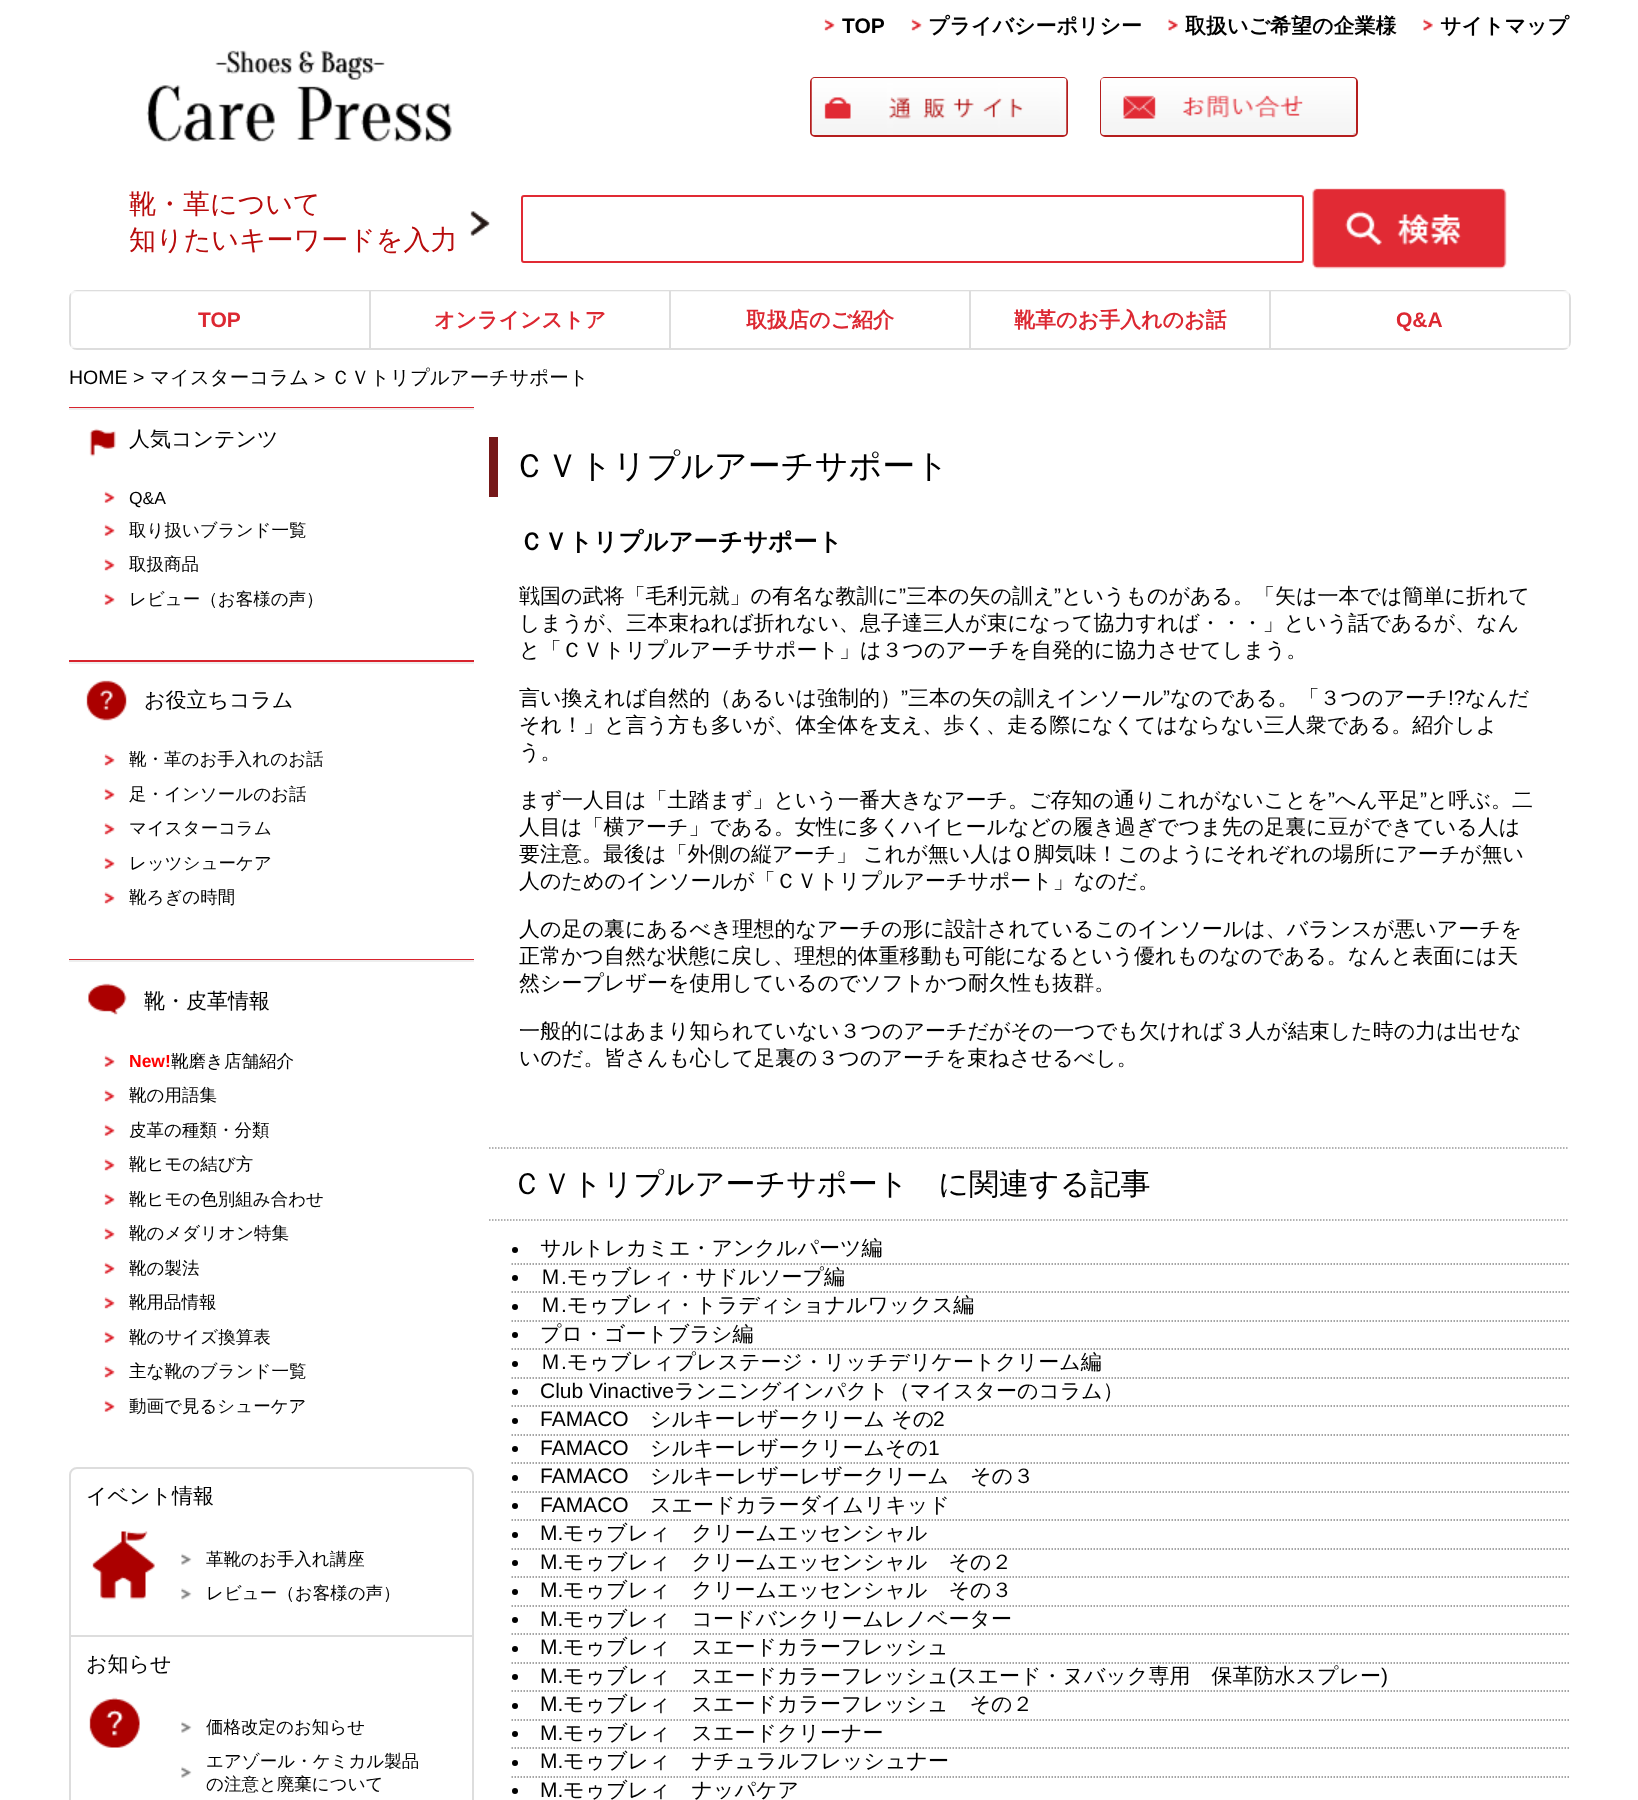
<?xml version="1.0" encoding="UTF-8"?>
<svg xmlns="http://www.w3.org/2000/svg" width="1638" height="1800">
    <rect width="100%" height="100%" fill="#FFFFFF"/>
    <image x="824" y="19" width="11" height="12" href="img_01.png"/>
    <text x="842" y="33" font-family="Liberation Sans" font-size="21" font-weight="700" fill="#000000">TOP</text>
    <image x="911" y="19" width="11" height="12" href="img_01.png"/>
    <text x="928" y="33" font-family="WenQuanYi Zen Hei" font-size="21" font-weight="700" fill="#000000">プライバシーポリシー</text>
    <image x="1168" y="19" width="10" height="12" href="img_02.png"/>
    <text x="1185" y="33" font-family="WenQuanYi Zen Hei" font-size="21" font-weight="700" fill="#000000">取扱いご希望の企業様</text>
    <image x="1423" y="19" width="10" height="12" href="img_02.png"/>
    <text x="1440" y="33" font-family="WenQuanYi Zen Hei" font-size="21" font-weight="700" fill="#000000">サイトマップ</text>
    <image x="146" y="50" width="306" height="92" href="img_03.png"/>
    <rect x="811" y="78" width="256" height="58" rx="4" fill="none" stroke="#B51E1E" stroke-width="2"/>
    <rect x="1101" y="78" width="256" height="58" rx="4" fill="none" stroke="#B51E1E" stroke-width="2"/>
    <image x="811" y="78" width="256" height="57" href="img_04.png"/>
    <image x="1101" y="78" width="255" height="57" href="img_05.png"/>
    <image x="470" y="211" width="20" height="25" href="img_06.png"/>
    <text font-family="WenQuanYi Zen Hei" font-size="27" font-weight="500" fill="#B80C0C">
        <tspan x="129" y="213">靴・革について</tspan>
        <tspan x="129" y="249">知りたいキーワードを入力</tspan>
    </text>
    <rect x="522" y="196" width="781" height="66" rx="2" fill="none" stroke="#E12A34" stroke-width="2"/>
    <image x="1312" y="188" width="195" height="81" href="img_07.png"/>
    <rect x="70" y="291" width="1500" height="58" rx="7" fill="none" stroke="#DDDDDD" stroke-width="2"/>
    <rect x="71" y="291" width="298" height="57" fill="#FFFFFF" fill-opacity="0.7"/>
    <rect x="369" y="291" width="2" height="57" fill="#DDDDDD"/>
    <text x="198" y="327" font-family="Liberation Sans" font-size="21" font-weight="700" fill="#DC2832">TOP</text>
    <rect x="371" y="291" width="298" height="1" fill="#FFFFFF" fill-opacity="0.7"/>
    <rect x="669" y="291" width="2" height="57" fill="#DDDDDD"/>
    <text x="434" y="327" font-family="WenQuanYi Zen Hei" font-size="21" font-weight="700" fill="#DC2832">オンラインストア</text>
    <rect x="671" y="291" width="298" height="1" fill="#FFFFFF" fill-opacity="0.7"/>
    <rect x="969" y="291" width="2" height="57" fill="#DDDDDD"/>
    <text x="746" y="327" font-family="WenQuanYi Zen Hei" font-size="21" font-weight="700" fill="#DC2832">取扱店のご紹介</text>
    <rect x="971" y="291" width="298" height="1" fill="#FFFFFF" fill-opacity="0.7"/>
    <rect x="1269" y="291" width="2" height="57" fill="#DDDDDD"/>
    <text x="1014" y="327" font-family="WenQuanYi Zen Hei" font-size="21" font-weight="700" fill="#DC2832">靴革のお手入れのお話</text>
    <rect x="1271" y="291" width="298" height="57" fill="#FFFFFF" fill-opacity="0.7"/>
    <text x="1396" y="327" font-family="Liberation Sans" font-size="21" font-weight="700" fill="#DC2832">Q&amp;A</text>
    <text x="69" y="384" font-family="Liberation Sans" font-size="19.5" fill="#000000">HOME &gt;</text>
    <text x="150" y="384" font-family="WenQuanYi Zen Hei" font-size="19.5" font-weight="500" fill="#000000">マイスターコラム</text>
    <text x="314" y="384" font-family="Liberation Sans" font-size="19.5" fill="#000000">&gt;</text>
    <text x="331" y="384" font-family="WenQuanYi Zen Hei" font-size="19.5" font-weight="500" fill="#000000">ＣＶトリプルアーチサポート</text>
    <rect x="69" y="407" width="405" height="1" fill="#D8242E"/>
    <rect x="69" y="408" width="405" height="2" fill="#EEEEEE"/>
    <image x="89" y="428" width="27" height="29" href="img_08.png"/>
    <text x="129" y="446" font-family="WenQuanYi Zen Hei" font-size="21" font-weight="500" fill="#000000">人気コンテンツ</text>
    <image x="104" y="491" width="11" height="12" href="img_09.png"/>
    <text x="129" y="504" font-family="Liberation Sans" font-size="17.5" fill="#000000">Q&amp;A</text>
    <image x="104" y="524" width="11" height="12" href="img_09.png"/>
    <text x="129" y="536" font-family="WenQuanYi Zen Hei" font-size="17.5" font-weight="500" fill="#000000">取り扱いブランド一覧</text>
    <image x="104" y="559" width="11" height="12" href="img_10.png"/>
    <text x="129" y="570" font-family="WenQuanYi Zen Hei" font-size="17.5" font-weight="500" fill="#000000">取扱商品</text>
    <image x="104" y="593" width="11" height="12" href="img_09.png"/>
    <text x="129" y="605" font-family="WenQuanYi Zen Hei" font-size="17.5" font-weight="500" fill="#000000">レビュー（お客様の声）</text>
    <rect x="69" y="660" width="405" height="2" fill="#D8242E"/>
    <rect x="69" y="662" width="405" height="2" fill="#EEEEEE"/>
    <image x="86" y="680" width="41" height="41" href="img_11.png"/>
    <text x="144" y="707" font-family="WenQuanYi Zen Hei" font-size="21" font-weight="500" fill="#000000">お役立ちコラム</text>
    <image x="104" y="754" width="11" height="12" href="img_10.png"/>
    <text x="129" y="765" font-family="WenQuanYi Zen Hei" font-size="17.5" font-weight="500" fill="#000000">靴・革のお手入れのお話</text>
    <image x="104" y="788" width="11" height="12" href="img_09.png"/>
    <text x="129" y="800" font-family="WenQuanYi Zen Hei" font-size="17.5" font-weight="500" fill="#000000">足・インソールのお話</text>
    <image x="104" y="823" width="11" height="12" href="img_10.png"/>
    <text x="129" y="834" font-family="WenQuanYi Zen Hei" font-size="17.5" font-weight="500" fill="#000000">マイスターコラム</text>
    <image x="104" y="857" width="11" height="12" href="img_09.png"/>
    <text x="129" y="869" font-family="WenQuanYi Zen Hei" font-size="17.5" font-weight="500" fill="#000000">レッツシューケア</text>
    <image x="104" y="892" width="11" height="12" href="img_10.png"/>
    <text x="129" y="903" font-family="WenQuanYi Zen Hei" font-size="17.5" font-weight="500" fill="#000000">靴ろぎの時間</text>
    <rect x="69" y="959" width="405" height="1" fill="#D8242E"/>
    <rect x="69" y="960" width="405" height="2" fill="#EEEEEE"/>
    <image x="88" y="983" width="39" height="32" href="img_12.png"/>
    <text x="144" y="1008" font-family="WenQuanYi Zen Hei" font-size="21" font-weight="500" fill="#000000">靴・皮革情報</text>
    <image x="104" y="1055" width="11" height="12" href="img_09.png"/>
    <text x="129" y="1067" font-family="Liberation Sans" font-size="17.5" font-weight="700" fill="#FF0000">New!</text>
    <text x="171" y="1067" font-family="WenQuanYi Zen Hei" font-size="17.5" font-weight="500" fill="#000000">靴磨き店舗紹介</text>
    <image x="104" y="1090" width="11" height="12" href="img_10.png"/>
    <text x="129" y="1101" font-family="WenQuanYi Zen Hei" font-size="17.5" font-weight="500" fill="#000000">靴の用語集</text>
    <image x="104" y="1124" width="11" height="12" href="img_09.png"/>
    <text x="129" y="1136" font-family="WenQuanYi Zen Hei" font-size="17.5" font-weight="500" fill="#000000">皮革の種類・分類</text>
    <image x="104" y="1159" width="11" height="12" href="img_10.png"/>
    <text x="129" y="1170" font-family="WenQuanYi Zen Hei" font-size="17.5" font-weight="500" fill="#000000">靴ヒモの結び方</text>
    <image x="104" y="1193" width="11" height="12" href="img_09.png"/>
    <text x="129" y="1205" font-family="WenQuanYi Zen Hei" font-size="17.5" font-weight="500" fill="#000000">靴ヒモの色別組み合わせ</text>
    <image x="104" y="1228" width="11" height="12" href="img_10.png"/>
    <text x="129" y="1239" font-family="WenQuanYi Zen Hei" font-size="17.5" font-weight="500" fill="#000000">靴のメダリオン特集</text>
    <image x="104" y="1262" width="11" height="12" href="img_09.png"/>
    <text x="129" y="1274" font-family="WenQuanYi Zen Hei" font-size="17.5" font-weight="500" fill="#000000">靴の製法</text>
    <image x="104" y="1297" width="11" height="12" href="img_10.png"/>
    <text x="129" y="1308" font-family="WenQuanYi Zen Hei" font-size="17.5" font-weight="500" fill="#000000">靴用品情報</text>
    <image x="104" y="1331" width="11" height="12" href="img_09.png"/>
    <text x="129" y="1343" font-family="WenQuanYi Zen Hei" font-size="17.5" font-weight="500" fill="#000000">靴のサイズ換算表</text>
    <image x="104" y="1366" width="11" height="12" href="img_10.png"/>
    <text x="129" y="1377" font-family="WenQuanYi Zen Hei" font-size="17.5" font-weight="500" fill="#000000">主な靴のブランド一覧</text>
    <image x="104" y="1400" width="11" height="12" href="img_09.png"/>
    <text x="129" y="1412" font-family="WenQuanYi Zen Hei" font-size="17.5" font-weight="500" fill="#000000">動画で見るシューケア</text>
    <rect x="70" y="1468" width="403" height="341" rx="7" fill="none" stroke="#DDDDDD" stroke-width="2"/>
    <text x="86" y="1503" font-family="WenQuanYi Zen Hei" font-size="21" font-weight="500" fill="#000000">イベント情報</text>
    <image x="92" y="1531" width="63" height="69" href="img_13.png"/>
    <image x="181" y="1553" width="11" height="12" href="img_14.png"/>
    <text x="206" y="1565" font-family="WenQuanYi Zen Hei" font-size="17.5" font-weight="500" fill="#000000">革靴のお手入れ講座</text>
    <image x="181" y="1588" width="11" height="12" href="img_15.png"/>
    <text x="206" y="1599" font-family="WenQuanYi Zen Hei" font-size="17.5" font-weight="500" fill="#000000">レビュー（お客様の声）</text>
    <rect x="71" y="1635" width="402" height="2" fill="#DDDDDD"/>
    <text x="86" y="1671" font-family="WenQuanYi Zen Hei" font-size="21" font-weight="500" fill="#000000">お知らせ</text>
    <image x="89" y="1697" width="51" height="51" href="img_16.png"/>
    <image x="181" y="1721" width="11" height="12" href="img_14.png"/>
    <text x="206" y="1733" font-family="WenQuanYi Zen Hei" font-size="17.5" font-weight="500" fill="#000000">価格改定のお知らせ</text>
    <image x="181" y="1766" width="11" height="12" href="img_14.png"/>
    <text font-family="WenQuanYi Zen Hei" font-size="17.5" font-weight="500" fill="#000000">
        <tspan x="206" y="1767">エアゾール・ケミカル製品</tspan>
        <tspan x="206" y="1790">の注意と廃棄について</tspan>
    </text>
    <rect x="489" y="437" width="9" height="60" fill="#761819"/>
    <text x="513" y="477" font-family="WenQuanYi Zen Hei" font-size="33" font-weight="500" fill="#000000">ＣＶトリプルアーチサポート</text>
    <text x="519" y="550" font-family="WenQuanYi Zen Hei" font-size="24.5" font-weight="700" fill="#000000">ＣＶトリプルアーチサポート</text>
    <text x="519" y="603" font-family="WenQuanYi Zen Hei" font-size="21" font-weight="500" fill="#000000">戦国の武将「毛利元就」の有名な教訓に</text>
    <text x="899" y="603" font-family="Liberation Sans" font-size="21" fill="#000000">”</text>
    <text x="906" y="603" font-family="WenQuanYi Zen Hei" font-size="21" font-weight="500" fill="#000000">三本の矢の訓え</text>
    <text x="1054" y="603" font-family="Liberation Sans" font-size="21" fill="#000000">”</text>
    <text x="1061" y="603" font-family="WenQuanYi Zen Hei" font-size="21" font-weight="500" fill="#000000">というものがある。「矢は一本では簡単に折れて</text>
    <text font-family="WenQuanYi Zen Hei" font-size="21" font-weight="500" fill="#000000">
        <tspan x="519" y="630">しまうが、三本束ねれば折れない、息子達三人が束になって協力すれば・・・」という話であるが、なん</tspan>
        <tspan x="519" y="657">と「ＣＶトリプルアーチサポート」は３つのアーチを自発的に協力させてしまう。</tspan>
    </text>
    <text x="519" y="705" font-family="WenQuanYi Zen Hei" font-size="21" font-weight="500" fill="#000000">言い換えれば自然的（あるいは強制的）</text>
    <text x="901" y="705" font-family="Liberation Sans" font-size="21" fill="#000000">”</text>
    <text x="908" y="705" font-family="WenQuanYi Zen Hei" font-size="21" font-weight="500" fill="#000000">三本の矢の訓えインソール</text>
    <text x="1163" y="705" font-family="Liberation Sans" font-size="21" fill="#000000">”</text>
    <text x="1170" y="705" font-family="WenQuanYi Zen Hei" font-size="21" font-weight="500" fill="#000000">なのである。「３つのアーチ</text>
    <text x="1448" y="705" font-family="Liberation Sans" font-size="21" fill="#000000">!?</text>
    <text x="1465" y="705" font-family="WenQuanYi Zen Hei" font-size="21" font-weight="500" fill="#000000">なんだ</text>
    <text font-family="WenQuanYi Zen Hei" font-size="21" font-weight="500" fill="#000000">
        <tspan x="519" y="732">それ！」と言う方も多いが、体全体を支え、歩く、走る際になくてはならない三人衆である。紹介しよ</tspan>
        <tspan x="519" y="759">う。</tspan>
    </text>
    <text x="519" y="807" font-family="WenQuanYi Zen Hei" font-size="21" font-weight="500" fill="#000000">まず一人目は「土踏まず」という一番大きなアーチ。ご存知の通りこれがないことを</text>
    <text x="1328" y="807" font-family="Liberation Sans" font-size="21" fill="#000000">”</text>
    <text x="1335" y="807" font-family="WenQuanYi Zen Hei" font-size="21" font-weight="500" fill="#000000">へん平足</text>
    <text x="1420" y="807" font-family="Liberation Sans" font-size="21" fill="#000000">”</text>
    <text x="1427" y="807" font-family="WenQuanYi Zen Hei" font-size="21" font-weight="500" fill="#000000">と呼ぶ。二</text>
    <text font-family="WenQuanYi Zen Hei" font-size="21" font-weight="500" fill="#000000">
        <tspan x="519" y="834">人目は「横アーチ」である。女性に多くハイヒールなどの履き過ぎでつま先の足裏に豆ができている人は</tspan>
        <tspan x="519" y="861">要注意。最後は「外側の縦アーチ」 これが無い人はＯ脚気味！このようにそれぞれの場所にアーチが無い</tspan>
        <tspan x="519" y="888">人のためのインソールが「ＣＶトリプルアーチサポート」なのだ。</tspan>
    </text>
    <text font-family="WenQuanYi Zen Hei" font-size="21" font-weight="500" fill="#000000">
        <tspan x="519" y="936">人の足の裏にあるべき理想的なアーチの形に設計されているこのインソールは、バランスが悪いアーチを</tspan>
        <tspan x="519" y="963">正常かつ自然な状態に戻し、理想的体重移動も可能になるという優れものなのである。なんと表面には天</tspan>
        <tspan x="519" y="990">然シープレザーを使用しているのでソフトかつ耐久性も抜群。</tspan>
    </text>
    <text font-family="WenQuanYi Zen Hei" font-size="21" font-weight="500" fill="#000000">
        <tspan x="519" y="1038">一般的にはあまり知られていない３つのアーチだがその一つでも欠ければ３人が結束した時の力は出せな</tspan>
        <tspan x="519" y="1065">いのだ。皆さんも心して足裏の３つのアーチを束ねさせるべし。</tspan>
    </text>
    <path d="M 489 1148 H 1569" fill="none" stroke="#999999" stroke-width="1.5" stroke-dasharray="1.5 1.5"/>
    <path d="M 489 1220 H 1569" fill="none" stroke="#999999" stroke-width="1.5" stroke-dasharray="1.5 1.5"/>
    <text x="512" y="1194" font-family="WenQuanYi Zen Hei" font-size="30" font-weight="500" fill="#000000">ＣＶトリプルアーチサポート　に関連する記事</text>
    <path d="M 511.5 1264 H 1569" fill="none" stroke="#888888" stroke-width="1.5" stroke-dasharray="1.5 1.5"/>
    <circle cx="515" cy="1250" r="3" fill="#000000"/>
    <text x="540" y="1255" font-family="WenQuanYi Zen Hei" font-size="21" font-weight="500" fill="#000000">サルトレカミエ・アンクルパーツ編</text>
    <path d="M 511.5 1292 H 1569" fill="none" stroke="#888888" stroke-width="1.5" stroke-dasharray="1.5 1.5"/>
    <circle cx="515" cy="1278" r="3" fill="#000000"/>
    <text x="540" y="1284" font-family="WenQuanYi Zen Hei" font-size="21" font-weight="500" fill="#000000">Ｍ</text>
    <text x="567" y="1284" font-family="WenQuanYi Zen Hei" font-size="21" font-weight="500" fill="#000000">モゥブレィ・サドルソープ編</text>
    <text x="561" y="1284" font-family="Liberation Sans" font-size="21" fill="#000000">.</text>
    <path d="M 511.5 1321 H 1569" fill="none" stroke="#888888" stroke-width="1.5" stroke-dasharray="1.5 1.5"/>
    <circle cx="515" cy="1307" r="3" fill="#000000"/>
    <text x="540" y="1312" font-family="WenQuanYi Zen Hei" font-size="21" font-weight="500" fill="#000000">Ｍ</text>
    <text x="567" y="1312" font-family="WenQuanYi Zen Hei" font-size="21" font-weight="500" fill="#000000">モゥブレィ・トラディショナルワックス編</text>
    <text x="561" y="1312" font-family="Liberation Sans" font-size="21" fill="#000000">.</text>
    <path d="M 511.5 1349 H 1569" fill="none" stroke="#888888" stroke-width="1.5" stroke-dasharray="1.5 1.5"/>
    <circle cx="515" cy="1335" r="3" fill="#000000"/>
    <text x="540" y="1341" font-family="WenQuanYi Zen Hei" font-size="21" font-weight="500" fill="#000000">プロ・ゴートブラシ編</text>
    <path d="M 511.5 1378 H 1569" fill="none" stroke="#888888" stroke-width="1.5" stroke-dasharray="1.5 1.5"/>
    <circle cx="515" cy="1364" r="3" fill="#000000"/>
    <text x="540" y="1369" font-family="WenQuanYi Zen Hei" font-size="21" font-weight="500" fill="#000000">Ｍ</text>
    <text x="567" y="1369" font-family="WenQuanYi Zen Hei" font-size="21" font-weight="500" fill="#000000">モゥブレィプレステージ・リッチデリケートクリーム編</text>
    <text x="561" y="1369" font-family="Liberation Sans" font-size="21" fill="#000000">.</text>
    <path d="M 511.5 1406 H 1569" fill="none" stroke="#888888" stroke-width="1.5" stroke-dasharray="1.5 1.5"/>
    <circle cx="515" cy="1392" r="3" fill="#000000"/>
    <text x="540" y="1398" font-family="Liberation Sans" font-size="21" fill="#000000">Club Vinactive</text>
    <text x="674" y="1398" font-family="WenQuanYi Zen Hei" font-size="21" font-weight="500" fill="#000000">ランニングインパクト（マイスターのコラム）</text>
    <path d="M 511.5 1435 H 1569" fill="none" stroke="#888888" stroke-width="1.5" stroke-dasharray="1.5 1.5"/>
    <circle cx="515" cy="1421" r="3" fill="#000000"/>
    <text x="540" y="1426" font-family="Liberation Sans" font-size="21" fill="#000000">FAMACO</text>
    <text x="650" y="1426" font-family="WenQuanYi Zen Hei" font-size="21" font-weight="500" fill="#000000">シルキーレザークリーム その</text>
    <text x="933" y="1426" font-family="Liberation Sans" font-size="21" fill="#000000">2</text>
    <path d="M 511.5 1463 H 1569" fill="none" stroke="#888888" stroke-width="1.5" stroke-dasharray="1.5 1.5"/>
    <circle cx="515" cy="1449" r="3" fill="#000000"/>
    <text x="540" y="1455" font-family="Liberation Sans" font-size="21" fill="#000000">FAMACO</text>
    <text x="650" y="1455" font-family="WenQuanYi Zen Hei" font-size="21" font-weight="500" fill="#000000">シルキーレザークリームその</text>
    <text x="928" y="1455" font-family="Liberation Sans" font-size="21" fill="#000000">1</text>
    <path d="M 511.5 1492 H 1569" fill="none" stroke="#888888" stroke-width="1.5" stroke-dasharray="1.5 1.5"/>
    <circle cx="515" cy="1478" r="3" fill="#000000"/>
    <text x="540" y="1483" font-family="Liberation Sans" font-size="21" fill="#000000">FAMACO</text>
    <text x="650" y="1483" font-family="WenQuanYi Zen Hei" font-size="21" font-weight="500" fill="#000000">シルキーレザーレザークリーム　その３</text>
    <path d="M 511.5 1520 H 1569" fill="none" stroke="#888888" stroke-width="1.5" stroke-dasharray="1.5 1.5"/>
    <circle cx="515" cy="1506" r="3" fill="#000000"/>
    <text x="540" y="1512" font-family="Liberation Sans" font-size="21" fill="#000000">FAMACO</text>
    <text x="650" y="1512" font-family="WenQuanYi Zen Hei" font-size="21" font-weight="500" fill="#000000">スエードカラーダイムリキッド</text>
    <path d="M 511.5 1549 H 1569" fill="none" stroke="#888888" stroke-width="1.5" stroke-dasharray="1.5 1.5"/>
    <circle cx="515" cy="1535" r="3" fill="#000000"/>
    <text x="540" y="1540" font-family="Liberation Sans" font-size="21" fill="#000000">M.</text>
    <text x="563" y="1540" font-family="WenQuanYi Zen Hei" font-size="21" font-weight="500" fill="#000000">モゥブレィ　クリームエッセンシャル</text>
    <path d="M 511.5 1577 H 1569" fill="none" stroke="#888888" stroke-width="1.5" stroke-dasharray="1.5 1.5"/>
    <circle cx="515" cy="1563" r="3" fill="#000000"/>
    <text x="540" y="1569" font-family="Liberation Sans" font-size="21" fill="#000000">M.</text>
    <text x="563" y="1569" font-family="WenQuanYi Zen Hei" font-size="21" font-weight="500" fill="#000000">モゥブレィ　クリームエッセンシャル　その２</text>
    <path d="M 511.5 1606 H 1569" fill="none" stroke="#888888" stroke-width="1.5" stroke-dasharray="1.5 1.5"/>
    <circle cx="515" cy="1592" r="3" fill="#000000"/>
    <text x="540" y="1597" font-family="Liberation Sans" font-size="21" fill="#000000">M.</text>
    <text x="563" y="1597" font-family="WenQuanYi Zen Hei" font-size="21" font-weight="500" fill="#000000">モゥブレィ　クリームエッセンシャル　その３</text>
    <path d="M 511.5 1634 H 1569" fill="none" stroke="#888888" stroke-width="1.5" stroke-dasharray="1.5 1.5"/>
    <circle cx="515" cy="1620" r="3" fill="#000000"/>
    <text x="540" y="1626" font-family="Liberation Sans" font-size="21" fill="#000000">M.</text>
    <text x="563" y="1626" font-family="WenQuanYi Zen Hei" font-size="21" font-weight="500" fill="#000000">モゥブレィ　コードバンクリームレノベーター</text>
    <path d="M 511.5 1663 H 1569" fill="none" stroke="#888888" stroke-width="1.5" stroke-dasharray="1.5 1.5"/>
    <circle cx="515" cy="1649" r="3" fill="#000000"/>
    <text x="540" y="1654" font-family="Liberation Sans" font-size="21" fill="#000000">M.</text>
    <text x="563" y="1654" font-family="WenQuanYi Zen Hei" font-size="21" font-weight="500" fill="#000000">モゥブレィ　スエードカラーフレッシュ</text>
    <path d="M 511.5 1691 H 1569" fill="none" stroke="#888888" stroke-width="1.5" stroke-dasharray="1.5 1.5"/>
    <circle cx="515" cy="1677" r="3" fill="#000000"/>
    <text x="540" y="1683" font-family="Liberation Sans" font-size="21" fill="#000000">M.</text>
    <text x="563" y="1683" font-family="WenQuanYi Zen Hei" font-size="21" font-weight="500" fill="#000000">モゥブレィ　スエードカラーフレッシュ</text>
    <text x="949" y="1683" font-family="Liberation Sans" font-size="21" fill="#000000">(</text>
    <text x="956" y="1683" font-family="WenQuanYi Zen Hei" font-size="21" font-weight="500" fill="#000000">スエード・ヌバック専用　保革防水スプレー</text>
    <text x="1381" y="1683" font-family="Liberation Sans" font-size="21" fill="#000000">)</text>
    <path d="M 511.5 1720 H 1569" fill="none" stroke="#888888" stroke-width="1.5" stroke-dasharray="1.5 1.5"/>
    <circle cx="515" cy="1706" r="3" fill="#000000"/>
    <text x="540" y="1711" font-family="Liberation Sans" font-size="21" fill="#000000">M.</text>
    <text x="563" y="1711" font-family="WenQuanYi Zen Hei" font-size="21" font-weight="500" fill="#000000">モゥブレィ　スエードカラーフレッシュ　その２</text>
    <path d="M 511.5 1748 H 1569" fill="none" stroke="#888888" stroke-width="1.5" stroke-dasharray="1.5 1.5"/>
    <circle cx="515" cy="1734" r="3" fill="#000000"/>
    <text x="540" y="1740" font-family="Liberation Sans" font-size="21" fill="#000000">M.</text>
    <text x="563" y="1740" font-family="WenQuanYi Zen Hei" font-size="21" font-weight="500" fill="#000000">モゥブレィ　スエードクリーナー</text>
    <path d="M 511.5 1777 H 1569" fill="none" stroke="#888888" stroke-width="1.5" stroke-dasharray="1.5 1.5"/>
    <circle cx="515" cy="1763" r="3" fill="#000000"/>
    <text x="540" y="1768" font-family="Liberation Sans" font-size="21" fill="#000000">M.</text>
    <text x="563" y="1768" font-family="WenQuanYi Zen Hei" font-size="21" font-weight="500" fill="#000000">モゥブレィ　ナチュラルフレッシュナー</text>
    <circle cx="515" cy="1791" r="3" fill="#000000"/>
    <text x="540" y="1797" font-family="Liberation Sans" font-size="21" fill="#000000">M.</text>
    <text x="563" y="1797" font-family="WenQuanYi Zen Hei" font-size="21" font-weight="500" fill="#000000">モゥブレィ　ナッパケア</text>
</svg>
